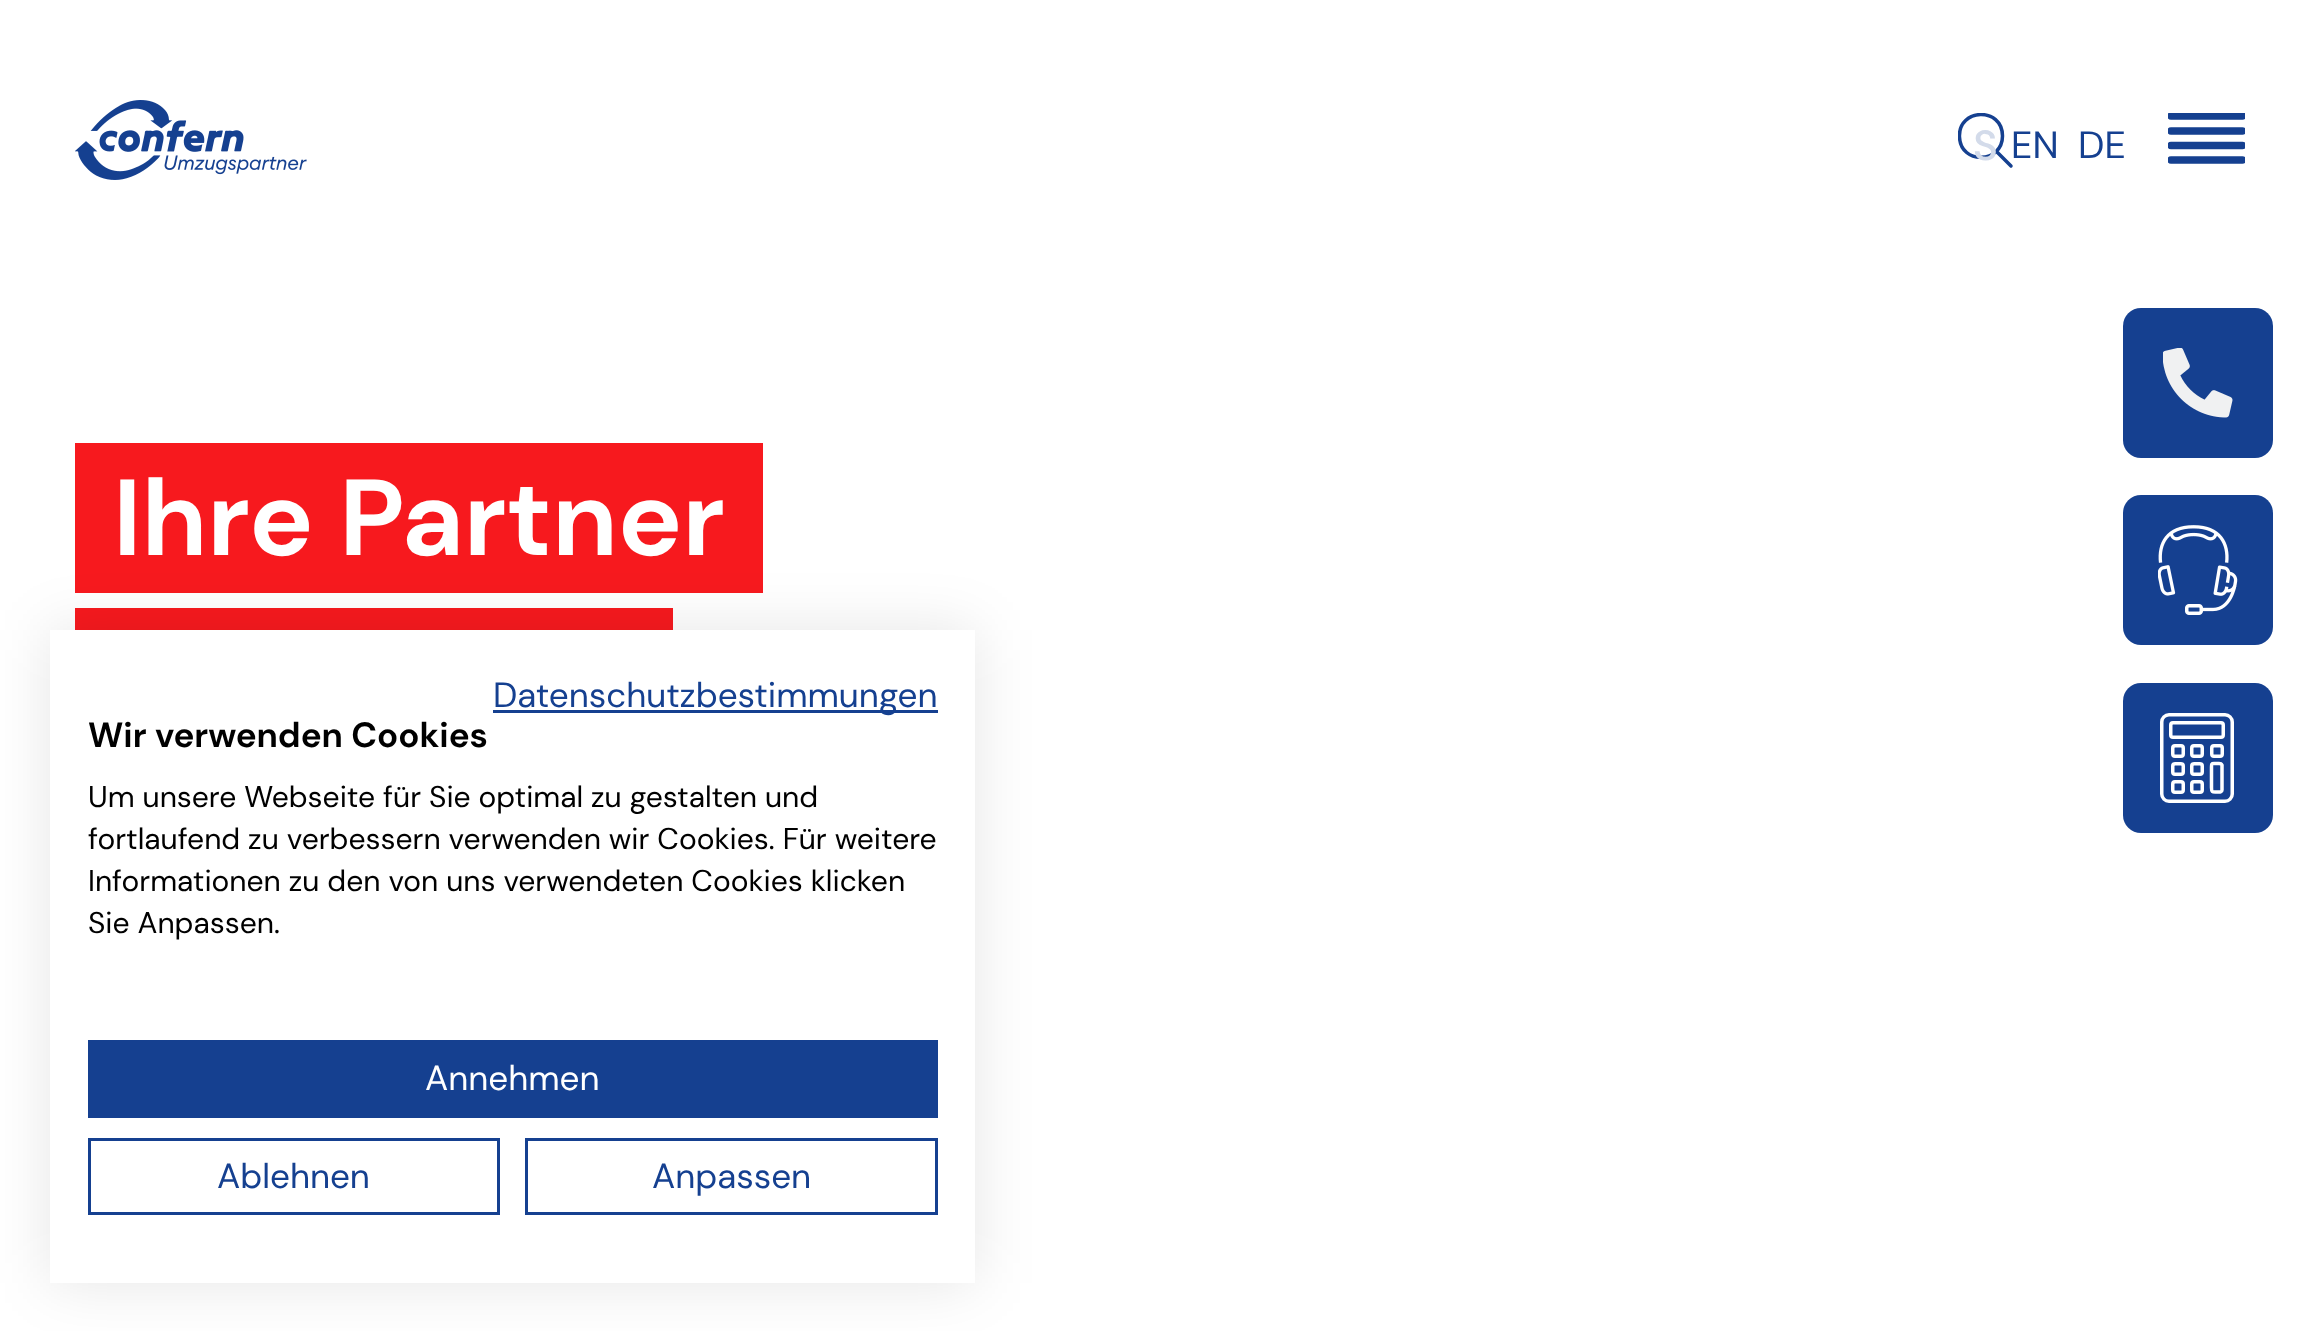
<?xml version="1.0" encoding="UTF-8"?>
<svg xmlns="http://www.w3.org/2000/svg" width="2299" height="1331">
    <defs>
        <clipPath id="clip1"><rect x="1958" y="113" width="55" height="55"/></clipPath>
        <clipPath id="clip2"><rect x="2168" y="113" width="77" height="52"/></clipPath>
        <filter id="blur1" x="-50%" y="-200%" width="200%" height="500%"><feGaussianBlur stdDeviation="30"/></filter>
    </defs>
    <rect width="100%" height="100%" fill="#FFFFFF"/>
    <image x="75" y="100" width="232" height="80" href="img_01.png"/>
    <g clip-path="url(#clip1)">
        <path d="M 2002.5 136 C 2002.5 163.5 1960.5 165 1959.5 137 C 1958 108 2002.5 106.5 2002.5 136 Z" fill="none" stroke="#154090" stroke-width="3.5" stroke-linecap="round" stroke-linejoin="round"/>
    </g>
    <path d="M 2011 166 L 1996.5 151.5" fill="none" stroke="#154090" stroke-width="3.5" stroke-linecap="round" stroke-linejoin="round"/>
    <text x="1973" y="160" font-family="DM Sans" font-size="42" font-weight="500" fill="#D3DBEA">S</text>
    <text x="2011" y="158" font-family="DM Sans" font-size="38" fill="#154090">EN</text>
    <text x="2078" y="158" font-family="DM Sans" font-size="38" fill="#154090">DE</text>
    <g clip-path="url(#clip2)">
        <path d="M 2171 116 H 2242.5" fill="none" stroke="#154090" stroke-width="7.3" stroke-linecap="round"/>
        <path d="M 2171 131 H 2242.5" fill="none" stroke="#154090" stroke-width="7.3" stroke-linecap="round"/>
        <path d="M 2171 145.5 H 2242.5" fill="none" stroke="#154090" stroke-width="7.3" stroke-linecap="round"/>
        <path d="M 2171 160 H 2242.5" fill="none" stroke="#154090" stroke-width="7.3" stroke-linecap="round"/>
    </g>
    <rect x="75" y="443" width="688" height="150" fill="#F7191E"/>
    <text x="113" y="555" font-family="DM Sans" font-size="108" font-weight="700" fill="#FFFFFF">Ihre Partner</text>
    <rect x="75" y="608" width="598" height="22" fill="#F7191E"/>
    <rect x="2123" y="308" width="150" height="150" rx="18" fill="#154090"/>
    <image x="2163" y="348" width="70" height="70" href="img_02.png"/>
    <rect x="2123" y="495" width="150" height="150" rx="18" fill="#154090"/>
    <image x="2158" y="525" width="80" height="90" href="img_03.png"/>
    <rect x="2123" y="683" width="150" height="150" rx="18" fill="#154090"/>
    <rect x="2161.75" y="714.75" width="70.5" height="86.5" rx="7.25" fill="none" stroke="#FFFFFF" stroke-width="3.5"/>
    <rect x="2170.75" y="722.75" width="52.5" height="14.5" rx="2.25" fill="none" stroke="#FFFFFF" stroke-width="3.5"/>
    <rect x="2172.75" y="745.75" width="10.5" height="10.5" rx="2.25" fill="none" stroke="#FFFFFF" stroke-width="3.5"/>
    <rect x="2172.75" y="763.75" width="10.5" height="10.5" rx="2.25" fill="none" stroke="#FFFFFF" stroke-width="3.5"/>
    <rect x="2172.75" y="781.75" width="10.5" height="10.5" rx="2.25" fill="none" stroke="#FFFFFF" stroke-width="3.5"/>
    <rect x="2191.75" y="745.75" width="10.5" height="10.5" rx="2.25" fill="none" stroke="#FFFFFF" stroke-width="3.5"/>
    <rect x="2191.75" y="763.75" width="10.5" height="10.5" rx="2.25" fill="none" stroke="#FFFFFF" stroke-width="3.5"/>
    <rect x="2191.75" y="781.75" width="10.5" height="10.5" rx="2.25" fill="none" stroke="#FFFFFF" stroke-width="3.5"/>
    <rect x="2211.75" y="745.75" width="10.5" height="10.5" rx="2.25" fill="none" stroke="#FFFFFF" stroke-width="3.5"/>
    <path d="M 2211.5 774.5 V 767 C 2211.5 764 2211.5 763.5 2214 763.5 H 2219 C 2220 763.5 2221.5 763.5 2222 765 V 790 C 2222 792.5 2219 792 2218 792 C 2212.5 792 2211.5 793 2211.5 787.5 Z" fill="none" stroke="#FFFFFF" stroke-width="3.5" stroke-linecap="round" stroke-linejoin="round"/>
    <rect x="50" y="630" width="925" height="653" fill="#000000" fill-opacity="0.1" filter="url(#blur1)"/>
    <rect x="50" y="630" width="925" height="653" fill="#FFFFFF"/>
    <rect x="493" y="710" width="445" height="3" fill="#154090"/>
    <text x="493" y="707" font-family="DM Sans" font-size="35" fill="#154090">Datenschutzbestimmungen</text>
    <text x="88" y="747" font-family="DM Sans" font-size="35" font-weight="700" fill="#000000">Wir verwenden Cookies</text>
    <text font-family="DM Sans" font-size="30" fill="#000000">
        <tspan x="88" y="807">Um unsere Webseite für Sie optimal zu gestalten und</tspan>
        <tspan x="88" y="849">fortlaufend zu verbessern verwenden wir Cookies. Für weitere</tspan>
        <tspan x="88" y="891">Informationen zu den von uns verwendeten Cookies klicken</tspan>
        <tspan x="88" y="933">Sie Anpassen.</tspan>
    </text>
    <rect x="88" y="1040" width="850" height="78" fill="#154090"/>
    <text x="425" y="1090" font-family="DM Sans" font-size="35" fill="#FFFFFF">Annehmen</text>
    <rect x="89.5" y="1139.5" width="409" height="74" fill="none" stroke="#154090" stroke-width="3"/>
    <text x="217" y="1188" font-family="DM Sans" font-size="35" fill="#154090">Ablehnen</text>
    <rect x="526.5" y="1139.5" width="410" height="74" fill="none" stroke="#154090" stroke-width="3"/>
    <text x="652" y="1188" font-family="DM Sans" font-size="35" fill="#154090">Anpassen</text>
</svg>
